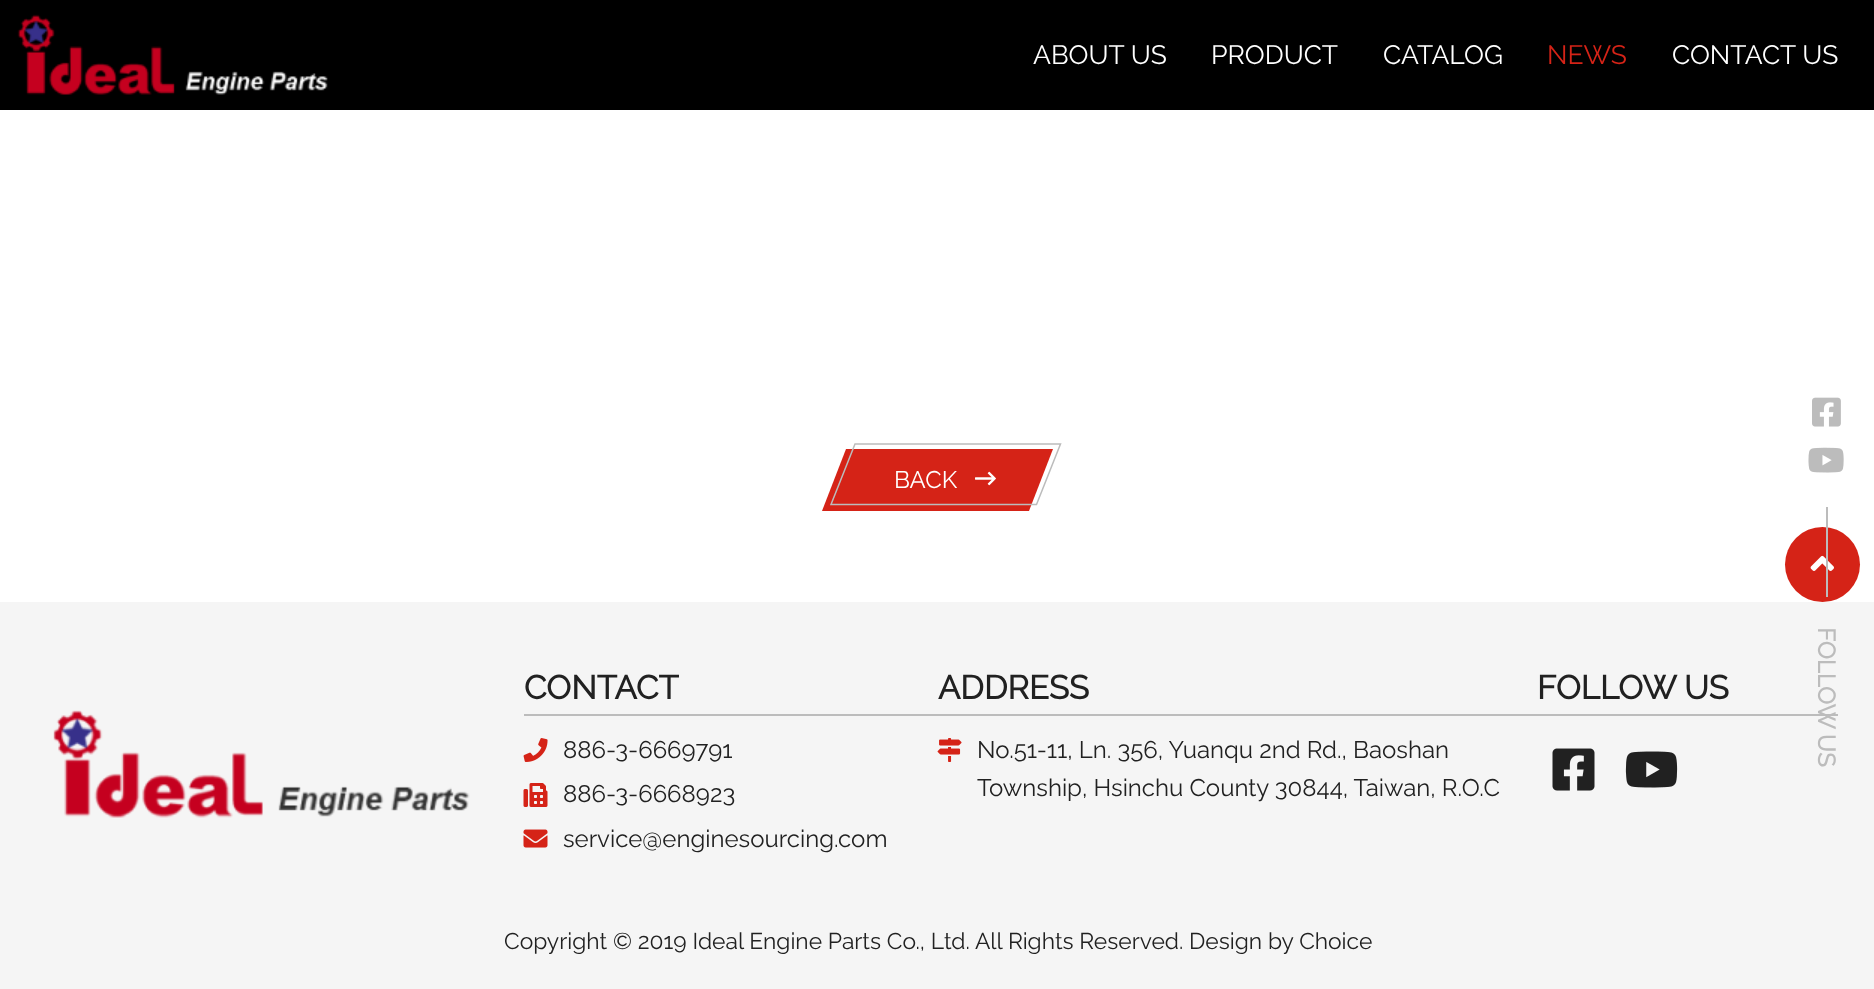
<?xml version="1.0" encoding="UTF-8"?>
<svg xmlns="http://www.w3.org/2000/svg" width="1874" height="989">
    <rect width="100%" height="100%" fill="#FFFFFF"/>
    <rect x="0" y="0" width="1874" height="110" fill="#000000"/>
    <image x="17" y="14" width="311" height="81" href="img_01.png"/>
    <text x="1033" y="64" font-family="Raleway" font-size="26.5" font-weight="100" fill="#FFFFFF">ABOUT US</text>
    <text x="1211" y="64" font-family="Raleway" font-size="26.5" font-weight="100" fill="#FFFFFF">PRODUCT</text>
    <text x="1383" y="64" font-family="Raleway" font-size="26.5" font-weight="100" fill="#FFFFFF">CATALOG</text>
    <text x="1547" y="64" font-family="Raleway" font-size="26.5" font-weight="100" fill="#D52317">NEWS</text>
    <text x="1672" y="64" font-family="Raleway" font-size="26.5" font-weight="100" fill="#FFFFFF">CONTACT US</text>
    <path d="M 846 449 H 1053 L 1029 511 H 822 Z" fill="#D52317"/>
    <path d="M 855 444 H 1060.5 L 1036.5 504.5 H 831 Z" fill="none" stroke="#BCBCBC" stroke-width="1.5"/>
    <text x="894" y="488" font-family="Raleway" font-size="24" font-weight="100" fill="#FFFFFF">BACK</text>
    <image x="975" y="471" width="21" height="15" href="img_02.png"/>
    <circle cx="1822.5" cy="564.5" r="37.5" fill="#D52317"/>
    <image x="1810" y="555" width="24" height="16" href="img_03.png"/>
    <rect x="0" y="602" width="1874" height="387" fill="#F5F5F5"/>
    <rect x="524" y="714" width="1314" height="2" fill="#BCBCBC"/>
    <text x="524" y="699" font-family="Raleway" font-size="33" font-weight="700" fill="#212121">CONTACT</text>
    <image x="523" y="738" width="25" height="24" href="img_04.png"/>
    <text x="563" y="758" font-family="Raleway" font-size="24" font-weight="100" fill="#212121">886-3-6669791</text>
    <image x="523" y="783" width="25" height="24" href="img_05.png"/>
    <text x="563" y="802" font-family="Raleway" font-size="24" font-weight="100" fill="#212121">886-3-6668923</text>
    <image x="523" y="829" width="25" height="19" href="img_06.png"/>
    <text x="563" y="847" font-family="Raleway" font-size="24" font-weight="100" fill="#212121">service@enginesourcing.com</text>
    <text x="938" y="699" font-family="Raleway" font-size="33" font-weight="700" fill="#212121">ADDRESS</text>
    <image x="937" y="738" width="25" height="24" href="img_07.png"/>
    <text font-family="Raleway" font-size="24" font-weight="100" fill="#212121">
        <tspan x="977" y="758">No.51-11, Ln. 356, Yuanqu 2nd Rd., Baoshan</tspan>
        <tspan x="977" y="796">Township, Hsinchu County 30844, Taiwan, R.O.C</tspan>
    </text>
    <text x="1537" y="699" font-family="Raleway" font-size="33" font-weight="700" fill="#212121">FOLLOW US</text>
    <image x="1552" y="748" width="43" height="43" href="img_08.png"/>
    <image x="1625" y="751" width="53" height="37" href="img_09.png"/>
    <image x="53" y="710" width="417" height="108" href="img_10.png"/>
    <text x="504" y="949" font-family="Raleway" font-size="22.8" font-weight="100" fill="#212121">Copyright © 2019 Ideal Engine Parts Co., Ltd. All Rights Reserved. Design by Choice</text>
    <image x="1812" y="397" width="29" height="30" href="img_11.png"/>
    <image x="1808" y="447" width="36" height="26" href="img_12.png"/>
    <rect x="1826" y="507" width="2" height="90" fill="#BCBCBC"/>
    <text x="1818" y="627" transform="rotate(90 1818 627)" font-family="Raleway" font-size="24" font-weight="700" fill="#BCBCBC">FOLLOW US</text>
</svg>
